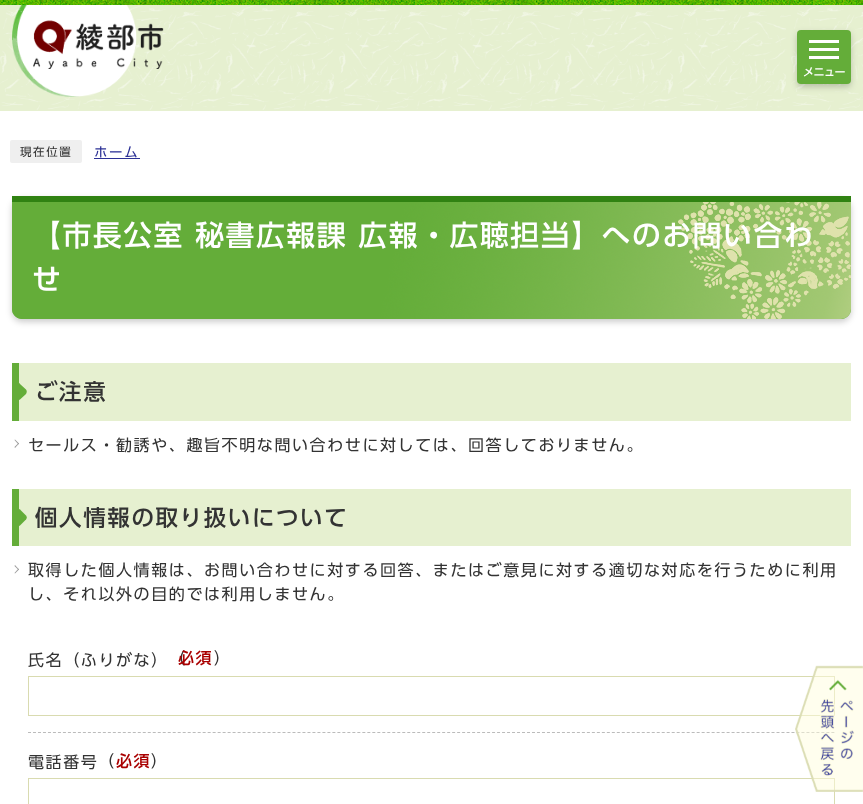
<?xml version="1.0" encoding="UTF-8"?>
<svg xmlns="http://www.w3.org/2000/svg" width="863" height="804">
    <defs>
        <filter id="blur1" x="-50%" y="-200%" width="200%" height="500%"><feGaussianBlur stdDeviation="3"/></filter>
        <clipPath id="clip1"><rect x="19" y="363" width="832" height="58"/></clipPath>
        <clipPath id="clip2"><rect x="19" y="489" width="832" height="57"/></clipPath>
    </defs>
    <rect width="100%" height="100%" fill="#FFFFFF"/>
    <image x="0" y="0" width="863" height="5" href="img_01.png"/>
    <rect x="0" y="5" width="863" height="106" fill="#E6F0D0"/>
    <image x="0" y="5" width="863" height="105" href="img_02.png"/>
    <image x="12" y="5" width="152" height="92" href="img_03.png"/>
    <rect x="797" y="33" width="54" height="54" rx="4" fill="#000000" fill-opacity="0.2" filter="url(#blur1)"/>
    <rect x="797" y="30" width="54" height="54" rx="4" fill="#64AD39"/>
    <rect x="809" y="40" width="30" height="3" fill="#FFFFFF"/>
    <rect x="809" y="48" width="30" height="3" fill="#FFFFFF"/>
    <rect x="809" y="56" width="30" height="3" fill="#FFFFFF"/>
    <text x="803" y="76" font-family="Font" font-size="11" font-weight="500" letter-spacing="-0.5" fill="#FFFFFF">メニュー</text>
    <rect x="10" y="140" width="72" height="23" rx="2" fill="#EFEFEF"/>
    <text x="20" y="156" font-family="Font" font-size="11.5" letter-spacing="1.6" fill="#333333">現在位置</text>
    <text x="94" y="157" font-family="Font" font-size="13.5" letter-spacing="1.6" fill="#2B3095">ホーム</text>
    <rect x="94" y="158" width="46" height="1" fill="#2B3095"/>
    <rect x="12" y="199" width="839" height="123" rx="10" fill="#000000" fill-opacity="0.2" filter="url(#blur1)"/>
    <path d="M 12 196 H 851 V 309 C 851 314.5 846.5 319 841 319 H 22 C 16.5 319 12 314.5 12 309 Z" fill="#64AD39"/>
    <image x="12" y="196" width="839" height="123" href="img_04.png"/>
    <text font-family="Font" font-size="28.8" font-weight="500" letter-spacing="1.6" fill="#FFFFFF">
        <tspan x="32" y="246">【市長公室 秘書広報課 広報・広聴担当】へのお問い合わ</tspan>
        <tspan x="32" y="290">せ</tspan>
    </text>
    <rect x="19" y="363" width="832" height="58" fill="#E6F0D0"/>
    <rect x="12" y="363" width="7" height="58" fill="#64AD39"/>
    <g clip-path="url(#clip1)">
        <path d="M 20 384 L 26 389.5 C 27 390.5 27 392.5 26 394 L 20 399.5 C 19 400.5 17 400.5 16 399.5 L 10 394 C 9 392.5 9 390.5 10 389.5 L 16 384 C 17 382.5 19 382.5 20 384 Z" fill="#64AD39"/>
    </g>
    <text x="35" y="400" font-family="Font" font-size="22.5" font-weight="500" letter-spacing="1.6" fill="#333333">ご注意</text>
    <path d="M 14.5 440 L 15 439.5 L 19 443.5 L 18.5 444.5 Z" fill="#999999"/>
    <path d="M 14.5 447 L 18.5 443 L 19 443.5 L 15 448 Z" fill="#999999"/>
    <text x="28" y="451" font-family="Font" font-size="16" letter-spacing="1.6" fill="#333333">セールス・勧誘や、趣旨不明な問い合わせに対しては、回答しておりません。</text>
    <rect x="19" y="489" width="832" height="57" fill="#E6F0D0"/>
    <rect x="12" y="489" width="7" height="57" fill="#64AD39"/>
    <g clip-path="url(#clip2)">
        <path d="M 20 509.5 L 26 515.5 C 27 516.5 27 518.5 26 519.5 L 20 525.5 C 19 526.5 17 526.5 16 525.5 L 10 519.5 C 9 518.5 9 516.5 10 515.5 L 16 509.5 C 17 508.5 19 508.5 20 509.5 Z" fill="#64AD39"/>
    </g>
    <text x="35" y="526" font-family="Font" font-size="22.5" font-weight="500" letter-spacing="1.6" fill="#333333">個人情報の取り扱いについて</text>
    <path d="M 14.5 566 L 15 565 L 19 569.5 L 18.5 570 Z" fill="#999999"/>
    <path d="M 14.5 573 L 18.5 568.5 L 19 569.5 L 15 573.5 Z" fill="#999999"/>
    <text font-family="Font" font-size="16" letter-spacing="1.6" fill="#333333">
        <tspan x="28" y="576">取得した個人情報は、お問い合わせに対する回答、またはご意見に対する適切な対応を行うために利用</tspan>
        <tspan x="28" y="600">し、それ以外の目的では利用しません。</tspan>
    </text>
    <path d="M 28 732.5 H 835" fill="none" stroke="#BBBBBB" stroke-dasharray="3 1.99"/>
    <text x="169" y="664" font-family="Font" font-size="16" letter-spacing="1.6" fill="#333333">（</text>
    <text x="178" y="664" font-family="Font" font-size="16" font-weight="500" letter-spacing="1.6" fill="#A90000">必須</text>
    <text x="28" y="666" font-family="Font" font-size="16" letter-spacing="1.6" fill="#333333">氏名（ふりがな）</text>
    <text x="214" y="664" font-family="Font" font-size="16" letter-spacing="1.6" fill="#333333">）</text>
    <rect x="28.5" y="676.5" width="806" height="39" fill="none" stroke="#D9DBB0"/>
    <text x="28" y="768" font-family="Font" font-size="16" letter-spacing="1.6" fill="#333333">電話番号</text>
    <text x="98" y="767" font-family="Font" font-size="16" letter-spacing="1.6" fill="#333333">（</text>
    <text x="116" y="767" font-family="Font" font-size="16" font-weight="500" letter-spacing="1.6" fill="#A90000">必須</text>
    <text x="151" y="767" font-family="Font" font-size="16" letter-spacing="1.6" fill="#333333">）</text>
    <rect x="28.5" y="778.5" width="806" height="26" fill="none" stroke="#D9DBB0"/>
    <image x="795" y="665" width="68" height="127" href="img_05.png"/>
</svg>
